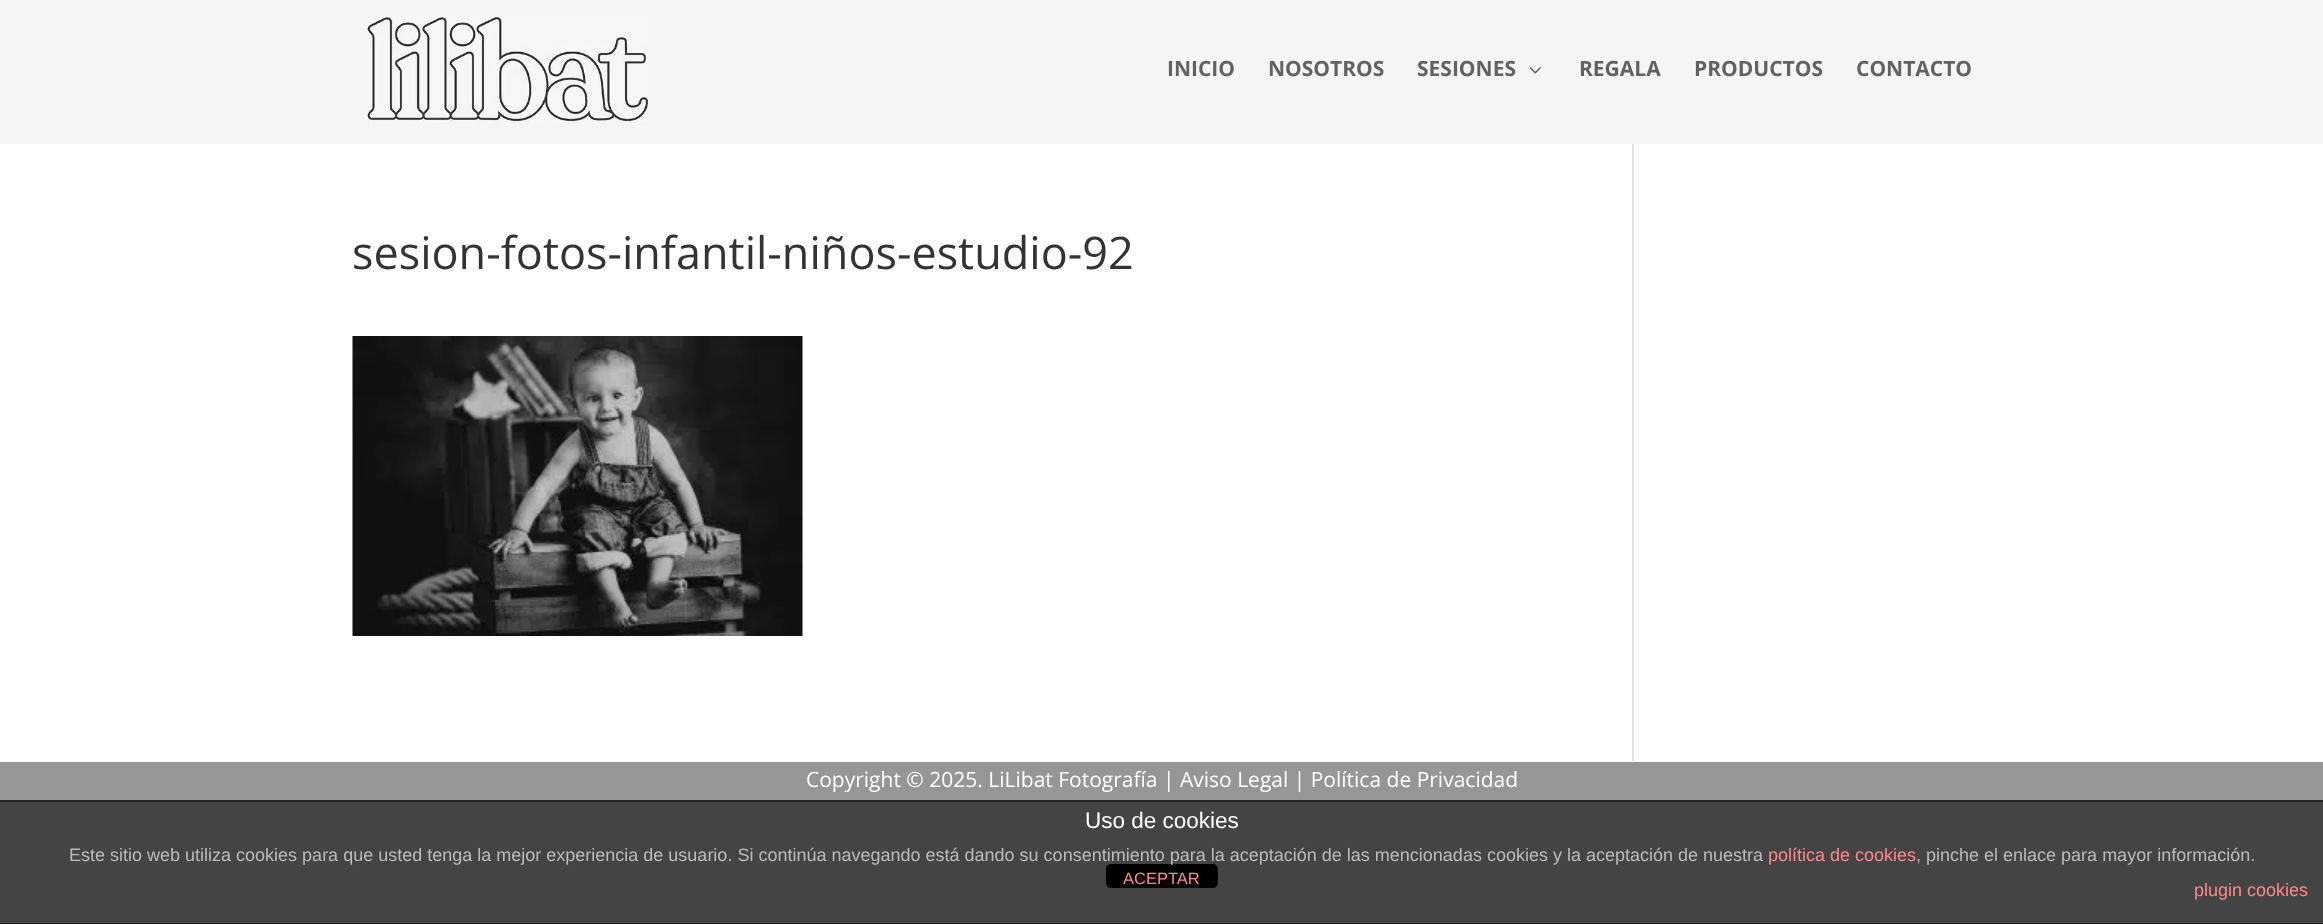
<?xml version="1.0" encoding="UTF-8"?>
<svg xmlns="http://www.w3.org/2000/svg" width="2323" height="924">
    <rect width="100%" height="100%" fill="#F5F5F5"/>
    <image x="367" y="15" width="281" height="107" href="img_01.png"/>
    <text x="1167" y="76" font-family="Open Sans" font-size="21" font-weight="700" fill="#626262">INICIO</text>
    <text x="1268" y="76" font-family="Open Sans" font-size="21" font-weight="700" fill="#626262">NOSOTROS</text>
    <text x="1417" y="76" font-family="Open Sans" font-size="21" font-weight="700" fill="#626262">SESIONES</text>
    <image x="1529" y="67" width="12" height="7" href="img_02.png"/>
    <text x="1579" y="76" font-family="Open Sans" font-size="21" font-weight="700" fill="#626262">REGALA</text>
    <text x="1694" y="76" font-family="Open Sans" font-size="21" font-weight="700" fill="#626262">PRODUCTOS</text>
    <text x="1856" y="76" font-family="Open Sans" font-size="21" font-weight="700" fill="#626262">CONTACTO</text>
    <rect x="0" y="144" width="2323" height="618" fill="#FFFFFF"/>
    <text x="352" y="269" font-family="Open Sans" font-size="45" fill="#333333">sesion-fotos-infantil-niños-estudio-92</text>
    <image x="352" y="336" width="451" height="300" href="img_03.png"/>
    <rect x="1632" y="144" width="2" height="617" fill="#E2E2E2"/>
    <rect x="0" y="762" width="2323" height="38" fill="#969696"/>
    <text x="806" y="787" font-family="Open Sans" font-size="21" fill="#FFFFFF">Copyright © 2025. LiLibat Fotografía | Aviso Legal | Política de Privacidad</text>
    <rect x="0" y="802" width="2323" height="121" fill="#444444"/>
    <rect x="0" y="800" width="2323" height="2" fill="#222222"/>
    <rect x="0" y="923" width="2323" height="1" fill="#222222"/>
    <text x="1085" y="828" font-family="Liberation Sans" font-size="22.5" fill="#FFFFFF">Uso de cookies</text>
    <rect x="1106" y="864" width="112" height="24" rx="5" fill="#000000"/>
    <text x="69" y="861" font-family="Liberation Sans" font-size="18" fill="#BBBBBB">Este sitio web utiliza cookies para que usted tenga la mejor experiencia de usuario. Si continúa navegando está dando su consentimiento para la aceptación de las mencionadas cookies y la aceptación de nuestra</text>
    <text x="1768" y="861" font-family="Liberation Sans" font-size="18" fill="#FF8888">política de cookies</text>
    <text x="1916" y="861" font-family="Liberation Sans" font-size="18" fill="#BBBBBB">, pinche el enlace para mayor información.</text>
    <text x="2194" y="896" font-family="Liberation Sans" font-size="18" fill="#FF8888">plugin cookies</text>
    <text x="1123" y="884" font-family="Liberation Sans" font-size="16.5" fill="#FF8888">ACEPTAR</text>
</svg>
